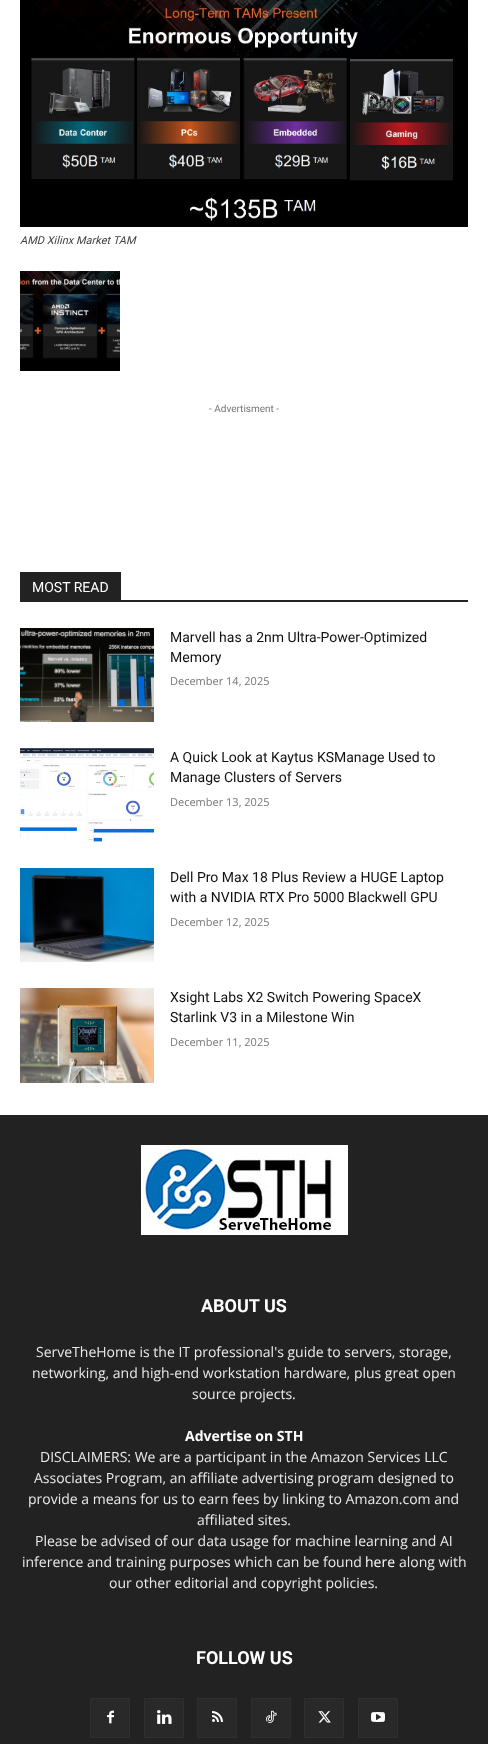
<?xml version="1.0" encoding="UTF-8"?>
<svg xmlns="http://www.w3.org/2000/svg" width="488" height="1744">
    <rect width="100%" height="100%" fill="#FFFFFF"/>
    <image x="20" y="0" width="448" height="227" href="img_01.png"/>
    <text x="20" y="244" font-family="Roboto" font-size="11" font-style="italic" fill="#444444">AMD Xilinx Market TAM</text>
    <image x="20" y="271" width="100" height="100" href="img_02.png"/>
    <text x="209" y="412" font-family="Roboto" font-size="10" fill="#767676">- Advertisment -</text>
    <rect x="20" y="600" width="448" height="2" fill="#222222"/>
    <rect x="20" y="572" width="101" height="28" fill="#222222"/>
    <text x="32" y="592" font-family="Roboto" font-size="14" fill="#FFFFFF">MOST READ</text>
    <image x="20" y="628" width="134" height="94" href="img_03.png"/>
    <text font-family="Roboto" font-size="14" fill="#111111">
        <tspan x="170" y="642">Marvell has a 2nm Ultra-Power-Optimized</tspan>
        <tspan x="170" y="662">Memory</tspan>
    </text>
    <text x="170" y="685" font-family="Open Sans" font-size="11" fill="#767676">December 14, 2025</text>
    <image x="20" y="748" width="134" height="94" href="img_04.png"/>
    <text font-family="Roboto" font-size="14" fill="#111111">
        <tspan x="170" y="762">A Quick Look at Kaytus KSManage Used to</tspan>
        <tspan x="170" y="782">Manage Clusters of Servers</tspan>
    </text>
    <text x="170" y="806" font-family="Open Sans" font-size="11" fill="#767676">December 13, 2025</text>
    <image x="20" y="868" width="134" height="94" href="img_05.png"/>
    <text font-family="Roboto" font-size="14" fill="#111111">
        <tspan x="170" y="882">Dell Pro Max 18 Plus Review a HUGE Laptop</tspan>
        <tspan x="170" y="902">with a NVIDIA RTX Pro 5000 Blackwell GPU</tspan>
    </text>
    <text x="170" y="926" font-family="Open Sans" font-size="11" fill="#767676">December 12, 2025</text>
    <image x="20" y="988" width="134" height="95" href="img_06.png"/>
    <text font-family="Roboto" font-size="14" fill="#111111">
        <tspan x="170" y="1002">Xsight Labs X2 Switch Powering SpaceX</tspan>
        <tspan x="170" y="1022">Starlink V3 in a Milestone Win</tspan>
    </text>
    <text x="170" y="1046" font-family="Open Sans" font-size="11" fill="#767676">December 11, 2025</text>
    <rect x="0" y="1115" width="488" height="629" fill="#222222"/>
    <image x="141" y="1145" width="207" height="90" href="img_07.png"/>
    <text x="201" y="1312" font-family="Roboto" font-size="18" font-weight="700" fill="#FFFFFF">ABOUT US</text>
    <text x="36" y="1357" font-family="Open Sans" font-size="14" fill="#EAEAEA">ServeTheHome is the IT professional's guide to servers, storage,</text>
    <text x="32" y="1378" font-family="Open Sans" font-size="14" fill="#EAEAEA">networking, and high-end workstation hardware, plus great open</text>
    <text x="192" y="1399" font-family="Open Sans" font-size="14" fill="#EAEAEA">source projects.</text>
    <text x="185" y="1441" font-family="Open Sans" font-size="14" font-weight="700" fill="#FFFFFF">Advertise on STH</text>
    <text x="40" y="1462" font-family="Open Sans" font-size="14" fill="#EAEAEA">DISCLAIMERS: We are a participant in the Amazon Services LLC</text>
    <text x="34" y="1483" font-family="Open Sans" font-size="14" fill="#EAEAEA">Associates Program, an affiliate advertising program designed to</text>
    <text x="28" y="1504" font-family="Open Sans" font-size="14" fill="#EAEAEA">provide a means for us to earn fees by linking to Amazon.com and</text>
    <text x="197" y="1525" font-family="Open Sans" font-size="14" fill="#EAEAEA">affiliated sites.</text>
    <text x="35" y="1546" font-family="Open Sans" font-size="14" fill="#EAEAEA">Please be advised of our data usage for machine learning and AI</text>
    <text x="22" y="1567" font-family="Open Sans" font-size="14" fill="#EAEAEA">inference and training purposes which can be found</text>
    <text x="365" y="1567" font-family="Open Sans" font-size="14" fill="#FFFFFF">here</text>
    <text x="399" y="1567" font-family="Open Sans" font-size="14" fill="#EAEAEA">along with</text>
    <text x="109" y="1588" font-family="Open Sans" font-size="14" fill="#EAEAEA">our other editorial and copyright policies.</text>
    <text x="196" y="1664" font-family="Roboto" font-size="18" font-weight="700" fill="#FFFFFF">FOLLOW US</text>
    <rect x="91" y="1699" width="38" height="38" fill="#292929"/>
    <image x="107" y="1710" width="7" height="14" href="img_08.png"/>
    <rect x="90.5" y="1698.5" width="39" height="39" fill="none" stroke="#2F2F2F"/>
    <rect x="145" y="1699" width="38" height="38" fill="#292929"/>
    <image x="157" y="1710" width="15" height="14" href="img_09.png"/>
    <rect x="144.5" y="1698.5" width="39" height="39" fill="none" stroke="#2F2F2F"/>
    <rect x="198" y="1699" width="38" height="38" fill="#292929"/>
    <image x="212" y="1711" width="11" height="11" href="img_10.png"/>
    <rect x="197.5" y="1698.5" width="39" height="39" fill="none" stroke="#2F2F2F"/>
    <rect x="252" y="1699" width="38" height="38" fill="#292929"/>
    <image x="266" y="1710" width="11" height="13" href="img_11.png"/>
    <rect x="251.5" y="1698.5" width="39" height="39" fill="none" stroke="#2F2F2F"/>
    <rect x="305" y="1699" width="38" height="38" fill="#292929"/>
    <image x="318" y="1711" width="13" height="12" href="img_12.png"/>
    <rect x="304.5" y="1698.5" width="39" height="39" fill="none" stroke="#2F2F2F"/>
    <rect x="359" y="1699" width="38" height="38" fill="#292929"/>
    <image x="371" y="1712" width="14" height="10" href="img_13.png"/>
    <rect x="358.5" y="1698.5" width="39" height="39" fill="none" stroke="#2F2F2F"/>
</svg>
